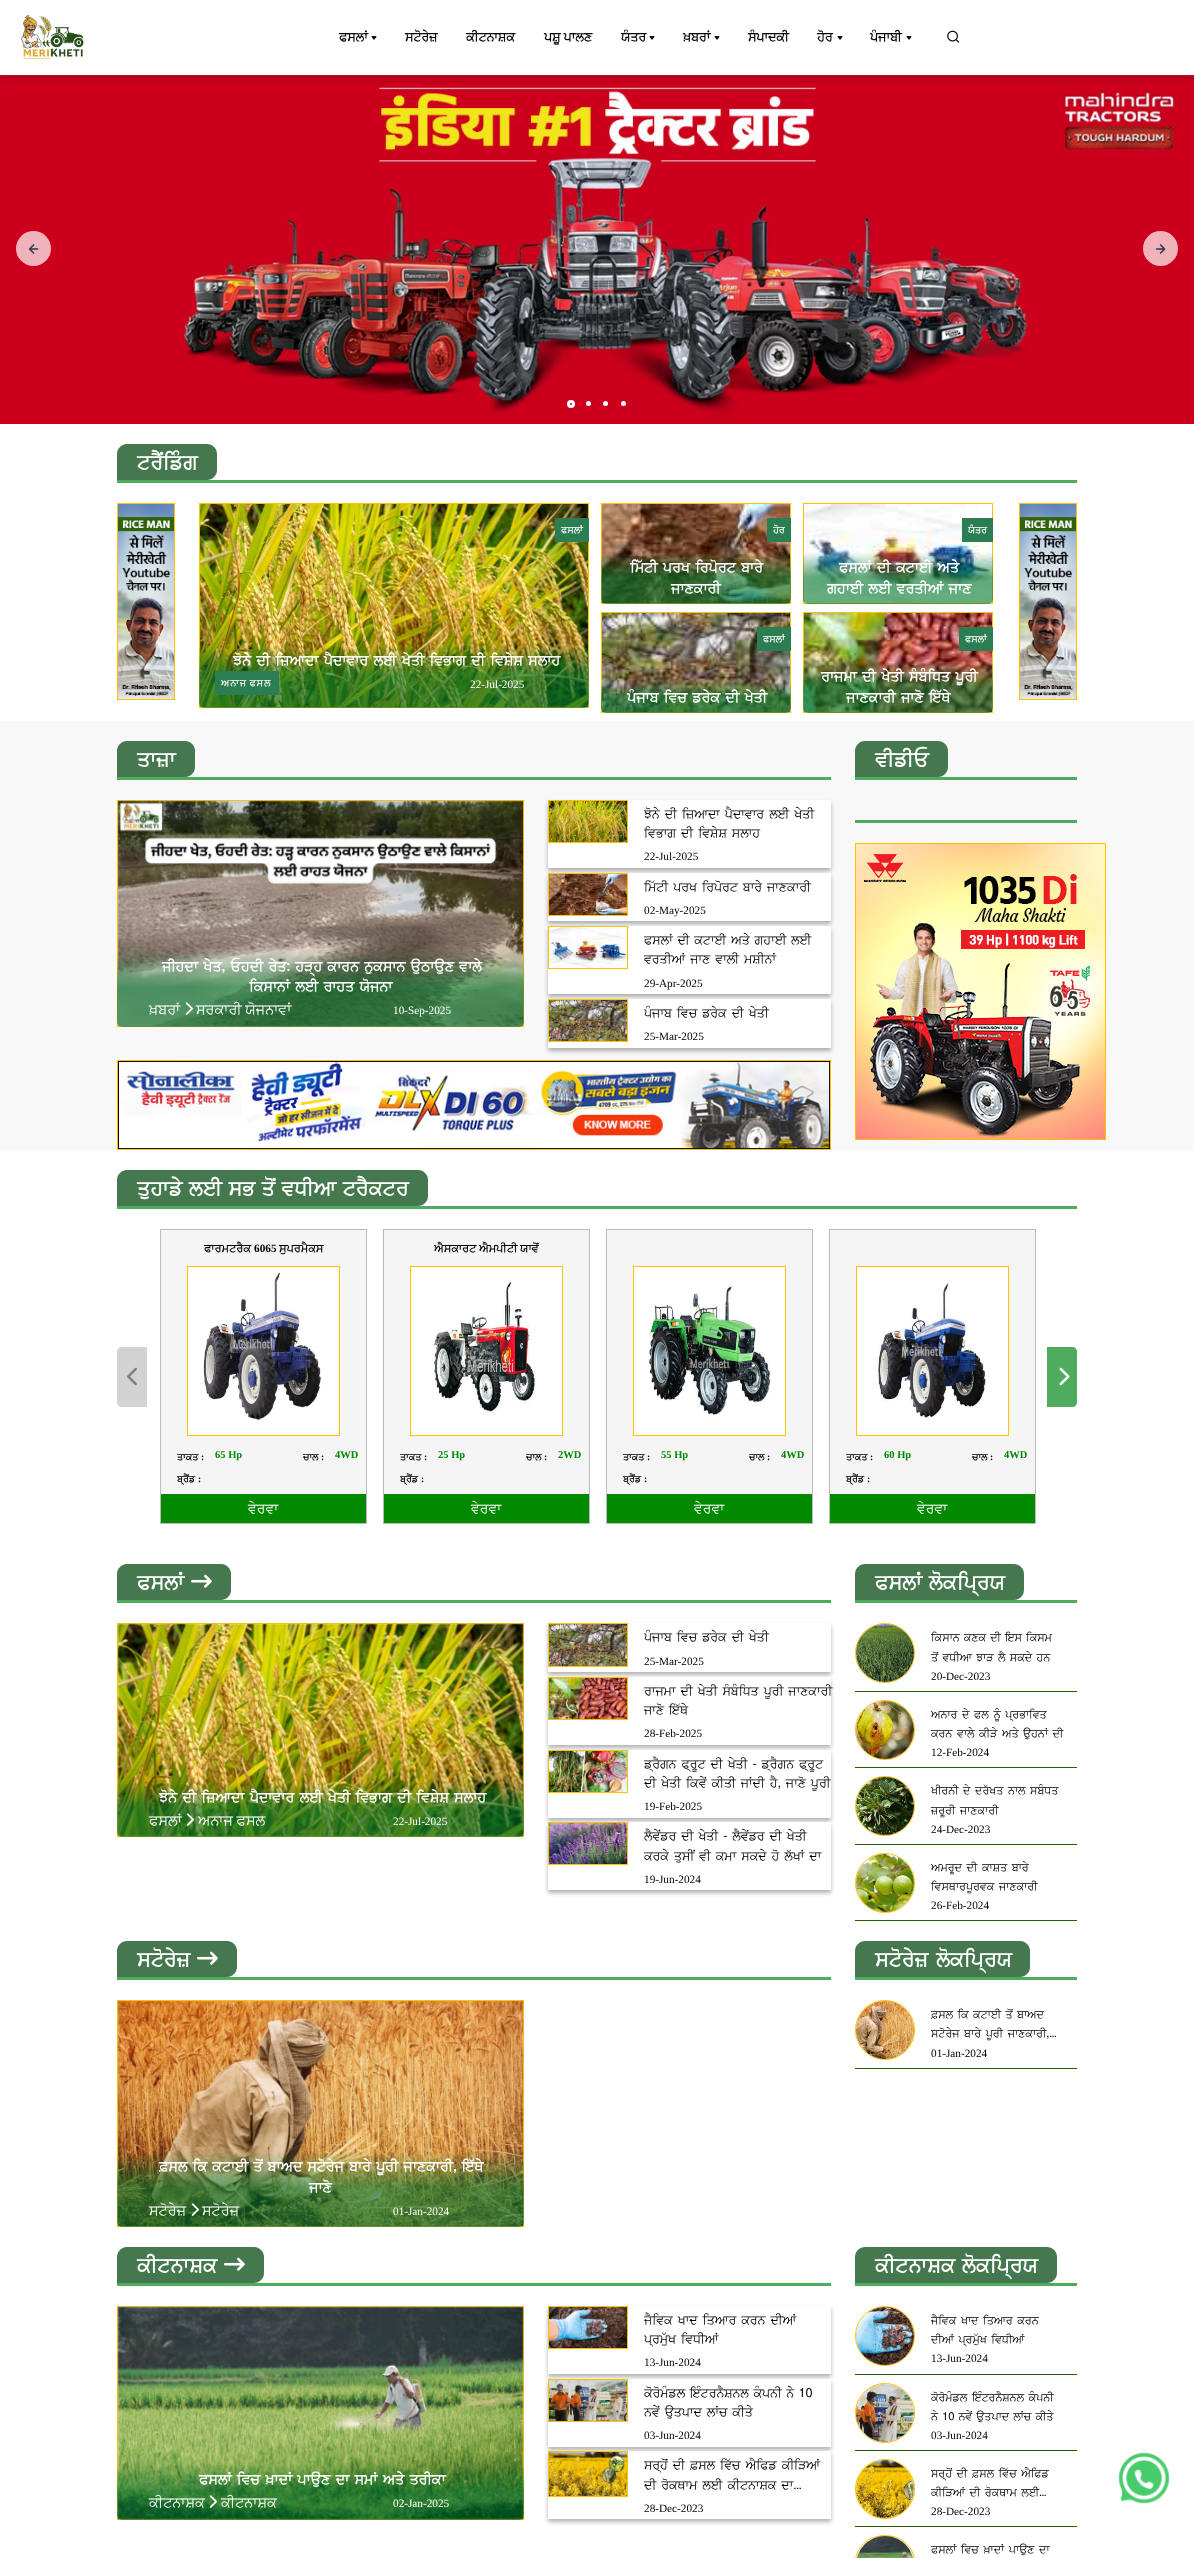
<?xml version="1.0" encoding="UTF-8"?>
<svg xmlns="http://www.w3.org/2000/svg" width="1194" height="2558">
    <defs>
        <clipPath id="clip1"><rect x="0" y="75" width="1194" height="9"/></clipPath>
        <filter id="blur1" x="-50%" y="-200%" width="200%" height="500%"><feGaussianBlur stdDeviation="5"/></filter>
        <linearGradient id="g1" gradientUnits="userSpaceOnUse" x1="394" y1="708" x2="394" y2="645"><stop offset="0.52" stop-color="#00762B" stop-opacity="0.6"/><stop offset="1" stop-color="#00762B" stop-opacity="0"/></linearGradient>
        <linearGradient id="g2" gradientUnits="userSpaceOnUse" x1="696" y1="604" x2="696" y2="552"><stop offset="0.52" stop-color="#00762B" stop-opacity="0.6"/><stop offset="1" stop-color="#00762B" stop-opacity="0"/></linearGradient>
        <linearGradient id="g3" gradientUnits="userSpaceOnUse" x1="898" y1="604" x2="898" y2="552"><stop offset="0.52" stop-color="#00762B" stop-opacity="0.6"/><stop offset="1" stop-color="#00762B" stop-opacity="0"/></linearGradient>
        <linearGradient id="g4" gradientUnits="userSpaceOnUse" x1="696" y1="713" x2="696" y2="682"><stop offset="0.52" stop-color="#00762B" stop-opacity="0.6"/><stop offset="1" stop-color="#00762B" stop-opacity="0"/></linearGradient>
        <linearGradient id="g5" gradientUnits="userSpaceOnUse" x1="898" y1="713" x2="898" y2="661"><stop offset="0.52" stop-color="#00762B" stop-opacity="0.6"/><stop offset="1" stop-color="#00762B" stop-opacity="0"/></linearGradient>
        <linearGradient id="g6" gradientUnits="userSpaceOnUse" x1="321" y1="1027" x2="321" y2="951"><stop offset="0.52" stop-color="#00762B" stop-opacity="0.6"/><stop offset="1" stop-color="#00762B" stop-opacity="0"/></linearGradient>
        <filter id="blur2" x="-50%" y="-200%" width="200%" height="500%"><feGaussianBlur stdDeviation="2"/></filter>
        <clipPath id="clip2"><rect x="644" y="800" width="187" height="43"/></clipPath>
        <clipPath id="clip3"><rect x="644" y="873" width="187" height="24"/></clipPath>
        <clipPath id="clip4"><rect x="644" y="999" width="187" height="24"/></clipPath>
        <linearGradient id="g7" gradientUnits="userSpaceOnUse" x1="321" y1="1837" x2="321" y2="1782"><stop offset="0.52" stop-color="#00762B" stop-opacity="0.6"/><stop offset="1" stop-color="#00762B" stop-opacity="0"/></linearGradient>
        <clipPath id="clip5"><path d="M 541 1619 H 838 V 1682 H 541 Z M 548 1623 H 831 V 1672 H 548 Z" clip-rule="evenodd"/></clipPath>
        <clipPath id="clip6"><rect x="644" y="1623" width="187" height="25"/></clipPath>
        <clipPath id="clip7"><rect x="644" y="1750" width="187" height="43"/></clipPath>
        <clipPath id="clip8"><rect x="644" y="1822" width="187" height="44"/></clipPath>
        <clipPath id="clip9"><rect x="931" y="1628" width="130" height="39"/></clipPath>
        <clipPath id="clip10"><rect x="931" y="1781" width="130" height="39"/></clipPath>
        <linearGradient id="g8" gradientUnits="userSpaceOnUse" x1="321" y1="2227" x2="321" y2="2151"><stop offset="0.52" stop-color="#00762B" stop-opacity="0.6"/><stop offset="1" stop-color="#00762B" stop-opacity="0"/></linearGradient>
        <linearGradient id="g9" gradientUnits="userSpaceOnUse" x1="321" y1="2520" x2="321" y2="2464"><stop offset="0.52" stop-color="#00762B" stop-opacity="0.6"/><stop offset="1" stop-color="#00762B" stop-opacity="0"/></linearGradient>
        <clipPath id="clip11"><path d="M 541 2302 H 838 V 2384 H 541 Z M 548 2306 H 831 V 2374 H 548 Z" clip-rule="evenodd"/></clipPath>
        <clipPath id="clip12"><rect x="644" y="2306" width="187" height="43"/></clipPath>
        <clipPath id="clip13"><rect x="644" y="2379" width="187" height="43"/></clipPath>
        <clipPath id="clip14"><rect x="644" y="2451" width="187" height="44"/></clipPath>
        <clipPath id="clip15"><rect x="931" y="2311" width="130" height="38"/></clipPath>
        <clipPath id="clip16"><rect x="931" y="2388" width="130" height="38"/></clipPath>
        <clipPath id="clip17"><rect x="931" y="2464" width="130" height="38"/></clipPath>
    </defs>
    <rect width="100%" height="100%" fill="#FFFFFF"/>
    <image x="0" y="75" width="1194" height="349" href="img_04.png"/>
    <g clip-path="url(#clip1)">
        <rect x="0" y="3" width="1194" height="75" fill="#000000" fill-opacity="0.2" filter="url(#blur1)"/>
    </g>
    <image x="21" y="14" width="63" height="45" href="img_01.png"/>
    <text x="339" y="41" font-family="FreeSans" font-size="12.75" font-weight="700" letter-spacing="-0.15" fill="#090909">ਫਸਲਾਂ</text>
    <image x="371" y="36" width="6" height="4" href="img_02.png"/>
    <text x="405" y="41" font-family="FreeSans" font-size="12.75" font-weight="700" letter-spacing="-0.15" fill="#090909">ਸਟੋਰੇਜ਼</text>
    <text x="466" y="41" font-family="FreeSans" font-size="12.75" font-weight="700" letter-spacing="-0.15" fill="#090909">ਕੀਟਨਾਸ਼ਕ</text>
    <text x="544" y="41" font-family="FreeSans" font-size="12.75" font-weight="700" letter-spacing="-0.15" fill="#090909">ਪਸ਼ੂ ਪਾਲਣ</text>
    <text x="621" y="41" font-family="FreeSans" font-size="12.75" font-weight="700" letter-spacing="-0.15" fill="#090909">ਯੰਤਰ</text>
    <image x="649" y="36" width="6" height="4" href="img_02.png"/>
    <text x="683" y="41" font-family="FreeSans" font-size="12.75" font-weight="700" letter-spacing="-0.15" fill="#090909">ਖ਼ਬਰਾਂ</text>
    <image x="714" y="36" width="6" height="4" href="img_02.png"/>
    <text x="748" y="41" font-family="FreeSans" font-size="12.75" font-weight="700" letter-spacing="-0.15" fill="#090909">ਸੰਪਾਦਕੀ</text>
    <text x="817" y="41" font-family="FreeSans" font-size="12.75" font-weight="700" letter-spacing="-0.15" fill="#090909">ਹੋਰ</text>
    <image x="837" y="36" width="6" height="4" href="img_02.png"/>
    <text x="870" y="41" font-family="FreeSans" font-size="12.75" font-weight="700" letter-spacing="-0.15" fill="#090909">ਪੰਜਾਬੀ</text>
    <image x="906" y="36" width="6" height="4" href="img_02.png"/>
    <image x="947" y="30" width="13" height="13" href="img_03.png"/>
    <circle cx="33.5" cy="248.5" r="17.5" fill="#F0B3BB"/>
    <image x="28" y="244" width="11" height="10" href="img_05.png"/>
    <circle cx="1160.5" cy="248.5" r="17.5" fill="#F0B3BB"/>
    <image x="1155" y="244" width="11" height="10" href="img_06.png"/>
    <circle cx="571" cy="404" r="2.5" fill="none" stroke="#FFFFFF" stroke-width="3"/>
    <circle cx="588.5" cy="403.5" r="2.5" fill="#FFFFFF"/>
    <circle cx="605.5" cy="403.5" r="2.5" fill="#FFFFFF"/>
    <circle cx="623.5" cy="403.5" r="2.5" fill="#FFFFFF"/>
    <rect x="117" y="480" width="960" height="3" fill="#4FAC5F"/>
    <path d="M 127 444 H 207 C 212.5 444 217 448.5 217 454 V 470 C 217 475.5 212.5 480 207 480 H 117 V 454 C 117 448.5 121.5 444 127 444 Z" fill="#45784E"/>
    <text x="137" y="469" font-family="FreeSans" font-size="20.75" font-weight="700" letter-spacing="-0.15" fill="#FFFFFF">ਟਰੈਂਡਿੰਗ</text>
    <rect x="117.5" y="503.5" width="57" height="196" fill="none" stroke="#FFC000"/>
    <image x="118" y="504" width="56" height="195" href="img_07.png"/>
    <rect x="199.5" y="503.5" width="389" height="204" fill="none" stroke="#FFC000"/>
    <image x="200" y="504" width="388" height="203" href="img_08.png"/>
    <rect x="555" y="518" width="34" height="24" fill="#2B7D52"/>
    <text x="561" y="533" font-family="FreeSans" font-size="9.5" font-weight="700" fill="#FFFFFF">ਫਸਲਾਂ</text>
    <rect x="199" y="645" width="390" height="63" rx="5" fill="url(#g1)"/>
    <text x="233" y="665" word-spacing="2" font-family="FreeSans" font-size="14.4" font-weight="700" letter-spacing="-0.15" fill="#FFFFFF">ਝੋਨੇ ਦੀ ਜ਼ਿਆਦਾ ਪੈਦਾਵਾਰ ਲਈ ਖੇਤੀ ਵਿਭਾਗ ਦੀ ਵਿਸ਼ੇਸ਼ ਸਲਾਹ</text>
    <rect x="215" y="671" width="64" height="24" fill="#2B7D52"/>
    <text x="221" y="686" word-spacing="-1" font-family="FreeSans" font-size="9.5" font-weight="700" letter-spacing="1" fill="#FFFFFF">ਅਨਾਜ ਫਸਲ</text>
    <text x="470" y="688" font-family="Liberation Serif" font-size="11.25" fill="#FFFFFF">22-Jul-2025</text>
    <rect x="601.5" y="503.5" width="189" height="100" fill="none" stroke="#FFC000"/>
    <image x="602" y="504" width="188" height="99" href="img_09.png"/>
    <rect x="767" y="518" width="24" height="24" fill="#2B7D52"/>
    <text x="773" y="533" font-family="FreeSans" font-size="9.5" font-weight="700" fill="#FFFFFF">ਹੋਰ</text>
    <rect x="601" y="552" width="190" height="52" rx="5" fill="url(#g2)"/>
    <text x="630" y="572" word-spacing="2" font-family="FreeSans" font-size="14.4" font-weight="700" letter-spacing="-0.15" fill="#FFFFFF">ਮਿੱਟੀ ਪਰਖ ਰਿਪੋਰਟ ਬਾਰੇ</text>
    <text x="671" y="593" font-family="FreeSans" font-size="14.4" font-weight="700" letter-spacing="-0.15" fill="#FFFFFF">ਜਾਣਕਾਰੀ</text>
    <rect x="803.5" y="503.5" width="189" height="100" fill="none" stroke="#FFC000"/>
    <image x="804" y="504" width="188" height="99" href="img_10.png"/>
    <rect x="962" y="518" width="31" height="24" fill="#2B7D52"/>
    <text x="968" y="533" font-family="FreeSans" font-size="9.5" font-weight="700" fill="#FFFFFF">ਯੰਤਰ</text>
    <rect x="803" y="552" width="190" height="52" rx="5" fill="url(#g3)"/>
    <text x="839" y="572" word-spacing="2" font-family="FreeSans" font-size="14.4" font-weight="700" letter-spacing="-0.15" fill="#FFFFFF">ਫਸਲਾਂ ਦੀ ਕਟਾਈ ਅਤੇ</text>
    <text x="827" y="593" word-spacing="2" font-family="FreeSans" font-size="14.4" font-weight="700" letter-spacing="-0.15" fill="#FFFFFF">ਗਹਾਈ ਲਈ ਵਰਤੀਆਂ ਜਾਣ</text>
    <rect x="601.5" y="612.5" width="189" height="100" fill="none" stroke="#FFC000"/>
    <image x="602" y="613" width="188" height="99" href="img_11.png"/>
    <rect x="757" y="627" width="34" height="24" fill="#2B7D52"/>
    <text x="763" y="642" font-family="FreeSans" font-size="9.5" font-weight="700" fill="#FFFFFF">ਫਸਲਾਂ</text>
    <rect x="601" y="682" width="190" height="31" rx="5" fill="url(#g4)"/>
    <text x="627" y="702" word-spacing="2" font-family="FreeSans" font-size="14.4" font-weight="700" letter-spacing="-0.15" fill="#FFFFFF">ਪੰਜਾਬ ਵਿਚ ਡਰੇਕ ਦੀ ਖੇਤੀ</text>
    <rect x="803.5" y="612.5" width="189" height="100" fill="none" stroke="#FFC000"/>
    <image x="804" y="613" width="188" height="99" href="img_12.png"/>
    <rect x="959" y="627" width="34" height="24" fill="#2B7D52"/>
    <text x="965" y="642" font-family="FreeSans" font-size="9.5" font-weight="700" fill="#FFFFFF">ਫਸਲਾਂ</text>
    <rect x="803" y="661" width="190" height="52" rx="5" fill="url(#g5)"/>
    <text x="821" y="681" word-spacing="2" font-family="FreeSans" font-size="14.4" font-weight="700" letter-spacing="-0.15" fill="#FFFFFF">ਰਾਜਮਾ ਦੀ ਖੇਤੀ ਸੰਬੰਧਿਤ ਪੂਰੀ</text>
    <text x="846" y="702" word-spacing="2" font-family="FreeSans" font-size="14.4" font-weight="700" letter-spacing="-0.15" fill="#FFFFFF">ਜਾਣਕਾਰੀ ਜਾਣੋ ਇੱਥੇ</text>
    <rect x="1019.5" y="503.5" width="57" height="196" fill="none" stroke="#FFC000"/>
    <image x="1020" y="504" width="56" height="195" href="img_13.png"/>
    <rect x="0" y="721" width="1194" height="429" fill="#F8F8F8"/>
    <rect x="117" y="777" width="714" height="3" fill="#4FAC5F"/>
    <path d="M 127 741 H 185 C 190.5 741 195 745.5 195 751 V 767 C 195 772.5 190.5 777 185 777 H 117 V 751 C 117 745.5 121.5 741 127 741 Z" fill="#45784E"/>
    <text x="137" y="766" font-family="FreeSans" font-size="20.75" font-weight="700" letter-spacing="-0.15" fill="#FFFFFF">ਤਾਜ਼ਾ</text>
    <rect x="117.5" y="800.5" width="406" height="226" fill="none" stroke="#FFC000"/>
    <image x="118" y="800" width="406" height="227" href="img_14.png"/>
    <rect x="117" y="951" width="407" height="76" rx="5" fill="url(#g6)"/>
    <text x="162" y="971" word-spacing="2" font-family="FreeSans" font-size="14.4" font-weight="700" letter-spacing="-0.15" fill="#FFFFFF">ਜੀਹਦਾ ਖੇਤ, ਓਹਦੀ ਰੇਤ: ਹੜ੍ਹ ਕਾਰਨ ਨੁਕਸਾਨ ਉਠਾਉਣ ਵਾਲੇ</text>
    <text x="249" y="991" word-spacing="2" font-family="FreeSans" font-size="14.4" font-weight="700" letter-spacing="-0.15" fill="#FFFFFF">ਕਿਸਾਨਾਂ ਲਈ ਰਾਹਤ ਯੋਜਨਾ</text>
    <text x="149" y="1014" font-family="FreeSans" font-size="14.4" fill="#FFFFFF">ਖ਼ਬਰਾਂ</text>
    <image x="185" y="1002" width="8" height="13" href="img_15.png"/>
    <text x="196" y="1014" font-family="FreeSans" font-size="14.4" fill="#FFFFFF">ਸਰਕਾਰੀ ਯੋਜਨਾਵਾਂ</text>
    <text x="393" y="1014" font-family="Liberation Serif" font-size="11.25" fill="#FFFFFF">10-Sep-2025</text>
    <rect x="548" y="803" width="283" height="68" fill="#000000" fill-opacity="0.3" filter="url(#blur2)"/>
    <rect x="548" y="800" width="283" height="68" fill="#FFFFFF"/>
    <rect x="548.5" y="800.5" width="79" height="42" fill="none" stroke="#FFC000"/>
    <image x="549" y="801" width="78" height="41" href="img_16.png"/>
    <g clip-path="url(#clip2)">
        <text x="644" y="818" word-spacing="2" font-family="FreeSans" font-size="12.75" letter-spacing="-0.15" fill="#000000">ਝੋਨੇ ਦੀ ਜ਼ਿਆਦਾ ਪੈਦਾਵਾਰ ਲਈ ਖੇਤੀ</text>
    </g>
    <text x="644" y="837" word-spacing="2" font-family="FreeSans" font-size="12.75" letter-spacing="-0.15" fill="#000000">ਵਿਭਾਗ ਦੀ ਵਿਸ਼ੇਸ਼ ਸਲਾਹ</text>
    <text x="644" y="860" font-family="Liberation Serif" font-size="11.25" fill="#000000">22-Jul-2025</text>
    <rect x="548" y="876" width="283" height="48" fill="#000000" fill-opacity="0.3" filter="url(#blur2)"/>
    <rect x="548" y="873" width="283" height="48" fill="#FFFFFF"/>
    <rect x="548.5" y="873.5" width="79" height="42" fill="none" stroke="#FFC000"/>
    <image x="549" y="874" width="78" height="41" href="img_17.png"/>
    <g clip-path="url(#clip3)">
        <text x="644" y="891" word-spacing="2" font-family="FreeSans" font-size="12.75" letter-spacing="-0.15" fill="#000000">ਮਿੱਟੀ ਪਰਖ ਰਿਪੋਰਟ ਬਾਰੇ ਜਾਣਕਾਰੀ</text>
    </g>
    <text x="644" y="914" font-family="Liberation Serif" font-size="11.25" fill="#000000">02-May-2025</text>
    <rect x="548" y="929" width="283" height="68" fill="#000000" fill-opacity="0.3" filter="url(#blur2)"/>
    <rect x="548" y="926" width="283" height="68" fill="#FFFFFF"/>
    <rect x="548.5" y="926.5" width="79" height="42" fill="none" stroke="#FFC000"/>
    <image x="549" y="927" width="78" height="41" href="img_18.png"/>
    <text font-family="FreeSans" font-size="12.75" letter-spacing="-0.15" fill="#000000">
        <tspan x="644" y="944" word-spacing="1.75">ਫਸਲਾਂ ਦੀ ਕਟਾਈ ਅਤੇ ਗਹਾਈ ਲਈ</tspan>
        <tspan x="644" y="963" word-spacing="2">ਵਰਤੀਆਂ ਜਾਣ ਵਾਲੀ ਮਸ਼ੀਨਾਂ</tspan>
    </text>
    <text x="644" y="987" font-family="Liberation Serif" font-size="11.25" fill="#000000">29-Apr-2025</text>
    <rect x="548" y="1002" width="283" height="49" fill="#000000" fill-opacity="0.3" filter="url(#blur2)"/>
    <rect x="548" y="999" width="283" height="49" fill="#FFFFFF"/>
    <rect x="548.5" y="999.5" width="79" height="42" fill="none" stroke="#FFC000"/>
    <image x="549" y="1000" width="78" height="41" href="img_19.png"/>
    <g clip-path="url(#clip4)">
        <text x="644" y="1017" word-spacing="2" font-family="FreeSans" font-size="12.75" letter-spacing="-0.15" fill="#000000">ਪੰਜਾਬ ਵਿਚ ਡਰੇਕ ਦੀ ਖੇਤੀ</text>
    </g>
    <text x="644" y="1040" font-family="Liberation Serif" font-size="11.25" fill="#000000">25-Mar-2025</text>
    <rect x="117.5" y="1060.5" width="713" height="89" fill="none" stroke="#FFC000"/>
    <image x="118" y="1061" width="712" height="88" href="img_20.png"/>
    <rect x="855" y="777" width="222" height="3" fill="#4FAC5F"/>
    <path d="M 865 741 H 938 C 943.5 741 948 745.5 948 751 V 767 C 948 772.5 943.5 777 938 777 H 855 V 751 C 855 745.5 859.5 741 865 741 Z" fill="#45784E"/>
    <text x="875" y="766" font-family="FreeSans" font-size="20.75" font-weight="700" letter-spacing="-0.15" fill="#FFFFFF">ਵੀਡੀਓ</text>
    <rect x="855" y="820" width="222" height="3" fill="#4FAC5F"/>
    <rect x="855.5" y="843.5" width="250" height="296" fill="none" stroke="#FFC000"/>
    <image x="856" y="844" width="249" height="295" href="img_21.png"/>
    <rect x="117" y="1206" width="960" height="3" fill="#4FAC5F"/>
    <path d="M 127 1170 H 418 C 423.5 1170 428 1174.5 428 1180 V 1196 C 428 1201.5 423.5 1206 418 1206 H 117 V 1180 C 117 1174.5 121.5 1170 127 1170 Z" fill="#45784E"/>
    <text x="137" y="1195" word-spacing="1.75" font-family="FreeSans" font-size="20.75" font-weight="700" letter-spacing="-0.15" fill="#FFFFFF">ਤੁਹਾਡੇ ਲਈ ਸਭ ਤੋਂ ਵਧੀਆ ਟਰੈਕਟਰ</text>
    <path d="M 122 1347 H 147 V 1407 H 122 C 119 1407 117 1405 117 1402 V 1352 C 117 1349 119 1347 122 1347 Z" fill="#D3D3D3"/>
    <image x="127" y="1367" width="10" height="19" href="img_22.png"/>
    <rect x="161" y="1230" width="205" height="264" fill="#F5F5F5"/>
    <rect x="160.5" y="1229.5" width="206" height="294" fill="none" stroke="#BBBBBB"/>
    <text x="204" y="1252" font-family="FreeSans" font-size="11.25" font-weight="700" fill="#000000">ਫਾਰਮਟਰੈਕ</text>
    <text x="254" y="1252" font-family="Liberation Serif" font-size="11.25" font-weight="700" fill="#000000">6065</text>
    <text x="279" y="1252" font-family="FreeSans" font-size="11.25" font-weight="700" fill="#000000">ਸੁਪਰਮੈਕਸ</text>
    <rect x="187.5" y="1266.5" width="152" height="169" fill="none" stroke="#FFC000"/>
    <image x="188" y="1267" width="151" height="168" href="img_23.png"/>
    <text x="177" y="1460" font-family="FreeSans" font-size="9.5" font-weight="700" fill="#000000">ਤਾਕਤ</text>
    <text x="201" y="1460" font-family="Liberation Serif" font-size="9.5" font-weight="700" fill="#000000">:</text>
    <text x="215" y="1458" font-family="Liberation Serif" font-size="10.5" font-weight="700" fill="#018904">65 Hp</text>
    <text x="303" y="1460" font-family="FreeSans" font-size="9.5" font-weight="700" fill="#000000">ਚਾਲ</text>
    <text x="321" y="1460" font-family="Liberation Serif" font-size="9.5" font-weight="700" fill="#000000">:</text>
    <text x="335" y="1458" font-family="Liberation Serif" font-size="10.5" font-weight="700" fill="#018904">4WD</text>
    <text x="177" y="1482" font-family="FreeSans" font-size="9.5" font-weight="700" fill="#000000">ਬ੍ਰੈਂਡ</text>
    <text x="198" y="1482" font-family="Liberation Serif" font-size="9.5" font-weight="700" fill="#000000">:</text>
    <rect x="161" y="1494" width="205" height="29" fill="#018900"/>
    <text x="248" y="1513" font-family="FreeSans" font-size="14" fill="#FFFFFF">ਵੇਰਵਾ</text>
    <rect x="384" y="1230" width="205" height="264" fill="#F5F5F5"/>
    <rect x="383.5" y="1229.5" width="206" height="294" fill="none" stroke="#BBBBBB"/>
    <text x="434" y="1252" font-family="FreeSans" font-size="11.25" font-weight="700" fill="#000000">ਐਸਕਾਰਟ ਐਮਪੀਟੀ ਯਾਵੋਂ</text>
    <rect x="410.5" y="1266.5" width="152" height="169" fill="none" stroke="#FFC000"/>
    <image x="411" y="1267" width="151" height="168" href="img_24.png"/>
    <text x="400" y="1460" font-family="FreeSans" font-size="9.5" font-weight="700" fill="#000000">ਤਾਕਤ</text>
    <text x="424" y="1460" font-family="Liberation Serif" font-size="9.5" font-weight="700" fill="#000000">:</text>
    <text x="438" y="1458" font-family="Liberation Serif" font-size="10.5" font-weight="700" fill="#018904">25 Hp</text>
    <text x="526" y="1460" font-family="FreeSans" font-size="9.5" font-weight="700" fill="#000000">ਚਾਲ</text>
    <text x="544" y="1460" font-family="Liberation Serif" font-size="9.5" font-weight="700" fill="#000000">:</text>
    <text x="558" y="1458" font-family="Liberation Serif" font-size="10.5" font-weight="700" fill="#018904">2WD</text>
    <text x="400" y="1482" font-family="FreeSans" font-size="9.5" font-weight="700" fill="#000000">ਬ੍ਰੈਂਡ</text>
    <text x="421" y="1482" font-family="Liberation Serif" font-size="9.5" font-weight="700" fill="#000000">:</text>
    <rect x="384" y="1494" width="205" height="29" fill="#018900"/>
    <text x="471" y="1513" font-family="FreeSans" font-size="14" fill="#FFFFFF">ਵੇਰਵਾ</text>
    <rect x="607" y="1230" width="205" height="264" fill="#F5F5F5"/>
    <rect x="606.5" y="1229.5" width="206" height="294" fill="none" stroke="#BBBBBB"/>
    <rect x="633.5" y="1266.5" width="152" height="169" fill="none" stroke="#FFC000"/>
    <image x="634" y="1267" width="151" height="168" href="img_25.png"/>
    <text x="623" y="1460" font-family="FreeSans" font-size="9.5" font-weight="700" fill="#000000">ਤਾਕਤ</text>
    <text x="647" y="1460" font-family="Liberation Serif" font-size="9.5" font-weight="700" fill="#000000">:</text>
    <text x="661" y="1458" font-family="Liberation Serif" font-size="10.5" font-weight="700" fill="#018904">55 Hp</text>
    <text x="749" y="1460" font-family="FreeSans" font-size="9.5" font-weight="700" fill="#000000">ਚਾਲ</text>
    <text x="767" y="1460" font-family="Liberation Serif" font-size="9.5" font-weight="700" fill="#000000">:</text>
    <text x="781" y="1458" font-family="Liberation Serif" font-size="10.5" font-weight="700" fill="#018904">4WD</text>
    <text x="623" y="1482" font-family="FreeSans" font-size="9.5" font-weight="700" fill="#000000">ਬ੍ਰੈਂਡ</text>
    <text x="644" y="1482" font-family="Liberation Serif" font-size="9.5" font-weight="700" fill="#000000">:</text>
    <rect x="607" y="1494" width="205" height="29" fill="#018900"/>
    <text x="694" y="1513" font-family="FreeSans" font-size="14" fill="#FFFFFF">ਵੇਰਵਾ</text>
    <rect x="830" y="1230" width="205" height="264" fill="#F5F5F5"/>
    <rect x="829.5" y="1229.5" width="206" height="294" fill="none" stroke="#BBBBBB"/>
    <rect x="856.5" y="1266.5" width="152" height="169" fill="none" stroke="#FFC000"/>
    <image x="857" y="1267" width="151" height="168" href="img_26.png"/>
    <text x="846" y="1460" font-family="FreeSans" font-size="9.5" font-weight="700" fill="#000000">ਤਾਕਤ</text>
    <text x="870" y="1460" font-family="Liberation Serif" font-size="9.5" font-weight="700" fill="#000000">:</text>
    <text x="884" y="1458" font-family="Liberation Serif" font-size="10.5" font-weight="700" fill="#018904">60 Hp</text>
    <text x="972" y="1460" font-family="FreeSans" font-size="9.5" font-weight="700" fill="#000000">ਚਾਲ</text>
    <text x="990" y="1460" font-family="Liberation Serif" font-size="9.5" font-weight="700" fill="#000000">:</text>
    <text x="1004" y="1458" font-family="Liberation Serif" font-size="10.5" font-weight="700" fill="#018904">4WD</text>
    <text x="846" y="1482" font-family="FreeSans" font-size="9.5" font-weight="700" fill="#000000">ਬ੍ਰੈਂਡ</text>
    <text x="867" y="1482" font-family="Liberation Serif" font-size="9.5" font-weight="700" fill="#000000">:</text>
    <rect x="830" y="1494" width="205" height="29" fill="#018900"/>
    <text x="917" y="1513" font-family="FreeSans" font-size="14" fill="#FFFFFF">ਵੇਰਵਾ</text>
    <path d="M 1047 1347 H 1072 C 1075 1347 1077 1349 1077 1352 V 1402 C 1077 1405 1075 1407 1072 1407 H 1047 Z" fill="#4FAC5F"/>
    <image x="1059" y="1367" width="11" height="19" href="img_27.png"/>
    <rect x="117" y="1600" width="714" height="3" fill="#4FAC5F"/>
    <path d="M 127 1564 H 221 C 226.5 1564 231 1568.5 231 1574 V 1590 C 231 1595.5 226.5 1600 221 1600 H 117 V 1574 C 117 1568.5 121.5 1564 127 1564 Z" fill="#45784E"/>
    <text x="137" y="1589" font-family="FreeSans" font-size="20.75" font-weight="700" letter-spacing="-0.15" fill="#FFFFFF">ਫਸਲਾਂ</text>
    <image x="191" y="1574" width="21" height="14" href="img_28.png"/>
    <rect x="117.5" y="1623.5" width="406" height="213" fill="none" stroke="#FFC000"/>
    <image x="117" y="1623" width="407" height="214" href="img_29.png"/>
    <rect x="117" y="1782" width="407" height="55" rx="5" fill="url(#g7)"/>
    <text x="159" y="1802" word-spacing="2" font-family="FreeSans" font-size="14.4" font-weight="700" letter-spacing="-0.15" fill="#FFFFFF">ਝੋਨੇ ਦੀ ਜ਼ਿਆਦਾ ਪੈਦਾਵਾਰ ਲਈ ਖੇਤੀ ਵਿਭਾਗ ਦੀ ਵਿਸ਼ੇਸ਼ ਸਲਾਹ</text>
    <text x="149" y="1825" font-family="FreeSans" font-size="14.4" fill="#FFFFFF">ਫਸਲਾਂ</text>
    <image x="186" y="1813" width="8" height="13" href="img_30.png"/>
    <text x="198" y="1825" font-family="FreeSans" font-size="14.4" fill="#FFFFFF">ਅਨਾਜ ਫਸਲ</text>
    <text x="393" y="1825" font-family="Liberation Serif" font-size="11.25" fill="#FFFFFF">22-Jul-2025</text>
    <g clip-path="url(#clip5)">
        <rect x="548" y="1626" width="283" height="49" fill="#000000" fill-opacity="0.3" filter="url(#blur2)"/>
    </g>
    <rect x="548.5" y="1623.5" width="79" height="43" fill="none" stroke="#FFC000"/>
    <image x="549" y="1624" width="78" height="42" href="img_31.png"/>
    <g clip-path="url(#clip6)">
        <text x="644" y="1641" word-spacing="2" font-family="FreeSans" font-size="12.75" letter-spacing="-0.15" fill="#000000">ਪੰਜਾਬ ਵਿਚ ਡਰੇਕ ਦੀ ਖੇਤੀ</text>
    </g>
    <text x="644" y="1665" font-family="Liberation Serif" font-size="11.25" fill="#000000">25-Mar-2025</text>
    <rect x="548" y="1680" width="283" height="68" fill="#000000" fill-opacity="0.3" filter="url(#blur2)"/>
    <rect x="548" y="1677" width="283" height="68" fill="#FFFFFF"/>
    <rect x="548.5" y="1677.5" width="79" height="42" fill="none" stroke="#FFC000"/>
    <image x="549" y="1678" width="78" height="41" href="img_32.png"/>
    <text font-family="FreeSans" font-size="12.75" letter-spacing="-0.15" fill="#000000">
        <tspan x="644" y="1695" word-spacing="2">ਰਾਜਮਾ ਦੀ ਖੇਤੀ ਸੰਬੰਧਿਤ ਪੂਰੀ ਜਾਣਕਾਰੀ</tspan>
        <tspan x="644" y="1714" word-spacing="2">ਜਾਣੋ ਇੱਥੇ</tspan>
    </text>
    <text x="644" y="1737" font-family="Liberation Serif" font-size="11.25" fill="#000000">28-Feb-2025</text>
    <rect x="548" y="1753" width="283" height="68" fill="#000000" fill-opacity="0.3" filter="url(#blur2)"/>
    <rect x="548" y="1750" width="283" height="68" fill="#FFFFFF"/>
    <rect x="548.5" y="1750.5" width="79" height="42" fill="none" stroke="#FFC000"/>
    <image x="549" y="1751" width="78" height="41" href="img_33.png"/>
    <g clip-path="url(#clip7)">
        <text font-family="FreeSans" font-size="12.75" letter-spacing="-0.15" fill="#000000">
            <tspan x="644" y="1768" word-spacing="2">ਡ੍ਰੈਗਨ ਫ੍ਰੂਟ ਦੀ ਖੇਤੀ - ਡ੍ਰੈਗਨ ਫ੍ਰੂਟ</tspan>
            <tspan x="644" y="1787" word-spacing="2">ਦੀ ਖੇਤੀ ਕਿਵੇਂ ਕੀਤੀ ਜਾਂਦੀ ਹੈ, ਜਾਣੋ ਪੂਰੀ</tspan>
        </text>
    </g>
    <text x="644" y="1810" font-family="Liberation Serif" font-size="11.25" fill="#000000">19-Feb-2025</text>
    <rect x="548" y="1825" width="283" height="68" fill="#000000" fill-opacity="0.3" filter="url(#blur2)"/>
    <rect x="548" y="1822" width="283" height="68" fill="#FFFFFF"/>
    <rect x="548.5" y="1822.5" width="79" height="42" fill="none" stroke="#FFC000"/>
    <image x="549" y="1823" width="78" height="41" href="img_34.png"/>
    <g clip-path="url(#clip8)">
        <text x="644" y="1840" word-spacing="2" font-family="FreeSans" font-size="12.75" letter-spacing="-0.15" fill="#000000">ਲੈਵੇਂਡਰ ਦੀ ਖੇਤੀ - ਲੈਵੇਂਡਰ ਦੀ ਖੇਤੀ</text>
    </g>
    <text x="644" y="1860" word-spacing="2" font-family="FreeSans" font-size="12.75" letter-spacing="-0.15" fill="#000000">ਕਰਕੇ ਤੁਸੀਂ ਵੀ ਕਮਾ ਸਕਦੇ ਹੋ ਲੱਖਾਂ ਦਾ</text>
    <text x="644" y="1883" font-family="Liberation Serif" font-size="11.25" fill="#000000">19-Jun-2024</text>
    <rect x="855" y="1600" width="222" height="3" fill="#4FAC5F"/>
    <path d="M 865 1564 H 1014 C 1019.5 1564 1024 1568.5 1024 1574 V 1590 C 1024 1595.5 1019.5 1600 1014 1600 H 855 V 1574 C 855 1568.5 859.5 1564 865 1564 Z" fill="#45784E"/>
    <text x="875" y="1589" word-spacing="2" font-family="FreeSans" font-size="20.75" font-weight="700" letter-spacing="-0.15" fill="#FFFFFF">ਫਸਲਾਂ ਲੋਕਪ੍ਰਿਯ</text>
    <rect x="855" y="1691" width="222" height="1" fill="#265C00"/>
    <circle cx="885" cy="1653" r="29.5" fill="none" stroke="#FFC000"/>
    <image x="856" y="1624" width="58" height="58" href="img_35.png"/>
    <text x="931" y="1641" word-spacing="1.5" font-family="FreeSans" font-size="11.25" letter-spacing="-0.15" fill="#000000">ਕਿਸਾਨ ਕਣਕ ਦੀ ਇਸ ਕਿਸਮ</text>
    <g clip-path="url(#clip9)">
        <text x="931" y="1661" word-spacing="1.75" font-family="FreeSans" font-size="11.25" letter-spacing="-0.15" fill="#000000">ਤੋਂ ਵਧੀਆ ਝਾੜ ਲੈ ਸਕਦੇ ਹਨ</text>
    </g>
    <text x="931" y="1680" font-family="Liberation Serif" font-size="11.25" fill="#000000">20-Dec-2023</text>
    <rect x="855" y="1767" width="222" height="1" fill="#265C00"/>
    <circle cx="885" cy="1730" r="29.5" fill="none" stroke="#FFC000"/>
    <image x="856" y="1701" width="58" height="58" href="img_36.png"/>
    <text font-family="FreeSans" font-size="11.25" letter-spacing="-0.15" fill="#000000">
        <tspan x="931" y="1718" word-spacing="2">ਅਨਾਰ ਦੇ ਫਲ ਨੂੰ ਪ੍ਰਭਾਵਿਤ</tspan>
        <tspan x="931" y="1737" word-spacing="2">ਕਰਨ ਵਾਲੇ ਕੀੜੇ ਅਤੇ ਉਹਨਾਂ ਦੀ</tspan>
    </text>
    <text x="931" y="1756" font-family="Liberation Serif" font-size="11.25" fill="#000000">12-Feb-2024</text>
    <rect x="855" y="1844" width="222" height="1" fill="#265C00"/>
    <circle cx="885" cy="1806" r="29.5" fill="none" stroke="#FFC000"/>
    <image x="856" y="1777" width="58" height="58" href="img_37.png"/>
    <g clip-path="url(#clip10)">
        <text x="931" y="1794" word-spacing="2" font-family="FreeSans" font-size="11.25" letter-spacing="-0.15" fill="#000000">ਖੀਰਨੀ ਦੇ ਦਰੱਖਤ ਨਾਲ ਸਬੰਧਤ</text>
    </g>
    <text x="931" y="1814" word-spacing="2" font-family="FreeSans" font-size="11.25" letter-spacing="-0.15" fill="#000000">ਜ਼ਰੂਰੀ ਜਾਣਕਾਰੀ</text>
    <text x="931" y="1833" font-family="Liberation Serif" font-size="11.25" fill="#000000">24-Dec-2023</text>
    <rect x="855" y="1920" width="222" height="1" fill="#265C00"/>
    <circle cx="885" cy="1883" r="29.5" fill="none" stroke="#FFC000"/>
    <image x="856" y="1854" width="58" height="58" href="img_38.png"/>
    <text font-family="FreeSans" font-size="11.25" letter-spacing="-0.15" fill="#000000">
        <tspan x="931" y="1871" word-spacing="2">ਅਮਰੂਦ ਦੀ ਕਾਸ਼ਤ ਬਾਰੇ</tspan>
        <tspan x="931" y="1890" word-spacing="2">ਵਿਸਥਾਰਪੂਰਵਕ ਜਾਣਕਾਰੀ</tspan>
    </text>
    <text x="931" y="1909" font-family="Liberation Serif" font-size="11.25" fill="#000000">26-Feb-2024</text>
    <rect x="117" y="1977" width="714" height="3" fill="#4FAC5F"/>
    <path d="M 127 1941 H 227 C 232.5 1941 237 1945.5 237 1951 V 1967 C 237 1972.5 232.5 1977 227 1977 H 117 V 1951 C 117 1945.5 121.5 1941 127 1941 Z" fill="#45784E"/>
    <text x="137" y="1966" font-family="FreeSans" font-size="20.75" font-weight="700" letter-spacing="-0.15" fill="#FFFFFF">ਸਟੋਰੇਜ਼</text>
    <image x="197" y="1951" width="21" height="14" href="img_28.png"/>
    <rect x="117.5" y="2000.5" width="406" height="226" fill="none" stroke="#FFC000"/>
    <image x="118" y="2001" width="406" height="226" href="img_39.png"/>
    <rect x="117" y="2151" width="407" height="76" rx="5" fill="url(#g8)"/>
    <text x="159" y="2171" word-spacing="1.75" font-family="FreeSans" font-size="14.4" font-weight="700" letter-spacing="-0.15" fill="#FFFFFF">ਫ਼ਸਲ ਕਿ ਕਟਾਈ ਤੋਂ ਬਾਅਦ ਸਟੋਰੇਜ ਬਾਰੇ ਪੂਰੀ ਜਾਣਕਾਰੀ, ਇੱਥੇ</text>
    <text x="309" y="2192" font-family="FreeSans" font-size="14.4" font-weight="700" letter-spacing="-0.15" fill="#FFFFFF">ਜਾਣੋ</text>
    <text x="149" y="2215" font-family="FreeSans" font-size="14.4" fill="#FFFFFF">ਸਟੋਰੇਜ਼</text>
    <image x="191" y="2203" width="8" height="13" href="img_40.png"/>
    <text x="202" y="2215" font-family="FreeSans" font-size="14.4" fill="#FFFFFF">ਸਟੋਰੇਜ਼</text>
    <text x="393" y="2215" font-family="Liberation Serif" font-size="11.25" fill="#FFFFFF">01-Jan-2024</text>
    <rect x="855" y="1977" width="222" height="3" fill="#4FAC5F"/>
    <path d="M 865 1941 H 1020 C 1025.5 1941 1030 1945.5 1030 1951 V 1967 C 1030 1972.5 1025.5 1977 1020 1977 H 855 V 1951 C 855 1945.5 859.5 1941 865 1941 Z" fill="#45784E"/>
    <text x="875" y="1966" word-spacing="3" font-family="FreeSans" font-size="20.75" font-weight="700" letter-spacing="-0.15" fill="#FFFFFF">ਸਟੋਰੇਜ਼ ਲੋਕਪ੍ਰਿਯ</text>
    <rect x="855" y="2068" width="222" height="1" fill="#265C00"/>
    <circle cx="885" cy="2030" r="29.5" fill="none" stroke="#FFC000"/>
    <image x="856" y="2001" width="58" height="58" href="img_41.png"/>
    <text font-family="FreeSans" font-size="11.25" letter-spacing="-0.15" fill="#000000">
        <tspan x="931" y="2018" word-spacing="1.75">ਫ਼ਸਲ ਕਿ ਕਟਾਈ ਤੋਂ ਬਾਅਦ</tspan>
        <tspan x="931" y="2037" word-spacing="2">ਸਟੋਰੇਜ ਬਾਰੇ ਪੂਰੀ ਜਾਣਕਾਰੀ,…</tspan>
    </text>
    <text x="931" y="2057" font-family="Liberation Serif" font-size="11.25" fill="#000000">01-Jan-2024</text>
    <rect x="117" y="2283" width="714" height="3" fill="#4FAC5F"/>
    <path d="M 127 2247 H 254 C 259.5 2247 264 2251.5 264 2257 V 2273 C 264 2278.5 259.5 2283 254 2283 H 117 V 2257 C 117 2251.5 121.5 2247 127 2247 Z" fill="#45784E"/>
    <text x="137" y="2272" font-family="FreeSans" font-size="20.75" font-weight="700" letter-spacing="-0.15" fill="#FFFFFF">ਕੀਟਨਾਸ਼ਕ</text>
    <image x="224" y="2257" width="21" height="14" href="img_28.png"/>
    <rect x="117.5" y="2306.5" width="406" height="213" fill="none" stroke="#FFC000"/>
    <image x="117" y="2306" width="407" height="214" href="img_42.png"/>
    <rect x="117" y="2464" width="407" height="56" rx="5" fill="url(#g9)"/>
    <text x="199" y="2484" word-spacing="2" font-family="FreeSans" font-size="14.4" font-weight="700" letter-spacing="-0.15" fill="#FFFFFF">ਫਸਲਾਂ ਵਿਚ ਖ਼ਾਦਾਂ ਪਾਉਣ ਦਾ ਸਮਾਂ ਅਤੇ ਤਰੀਕਾ</text>
    <text x="149" y="2507" font-family="FreeSans" font-size="14.4" fill="#FFFFFF">ਕੀਟਨਾਸ਼ਕ</text>
    <image x="209" y="2495" width="8" height="13" href="img_43.png"/>
    <text x="221" y="2507" font-family="FreeSans" font-size="14.4" fill="#FFFFFF">ਕੀਟਨਾਸ਼ਕ</text>
    <text x="393" y="2507" font-family="Liberation Serif" font-size="11.25" fill="#FFFFFF">02-Jan-2025</text>
    <g clip-path="url(#clip11)">
        <rect x="548" y="2309" width="283" height="68" fill="#000000" fill-opacity="0.3" filter="url(#blur2)"/>
    </g>
    <rect x="548.5" y="2306.5" width="79" height="42" fill="none" stroke="#FFC000"/>
    <image x="549" y="2307" width="78" height="41" href="img_44.png"/>
    <g clip-path="url(#clip12)">
        <text font-family="FreeSans" font-size="12.75" letter-spacing="-0.15" fill="#000000">
            <tspan x="644" y="2324" word-spacing="2">ਜੈਵਿਕ ਖਾਦ ਤਿਆਰ ਕਰਨ ਦੀਆਂ</tspan>
            <tspan x="644" y="2343" word-spacing="2">ਪ੍ਰਮੁੱਖ ਵਿਧੀਆਂ</tspan>
        </text>
    </g>
    <text x="644" y="2366" font-family="Liberation Serif" font-size="11.25" fill="#000000">13-Jun-2024</text>
    <rect x="548" y="2382" width="283" height="68" fill="#000000" fill-opacity="0.3" filter="url(#blur2)"/>
    <rect x="548" y="2379" width="283" height="68" fill="#FFFFFF"/>
    <rect x="548.5" y="2379.5" width="79" height="42" fill="none" stroke="#FFC000"/>
    <image x="549" y="2380" width="78" height="41" href="img_45.png"/>
    <g clip-path="url(#clip13)">
        <text x="644" y="2397" word-spacing="1.5" font-family="FreeSans" font-size="12.75" letter-spacing="-0.15" fill="#000000">ਕੋਰੋਮੰਡਲ ਇੰਟਰਨੈਸ਼ਨਲ ਕੰਪਨੀ ਨੇ 10</text>
    </g>
    <text x="644" y="2416" word-spacing="2" font-family="FreeSans" font-size="12.75" letter-spacing="-0.15" fill="#000000">ਨਵੇਂ ਉਤਪਾਦ ਲਾਂਚ ਕੀਤੇ</text>
    <text x="644" y="2439" font-family="Liberation Serif" font-size="11.25" fill="#000000">03-Jun-2024</text>
    <rect x="548" y="2454" width="283" height="68" fill="#000000" fill-opacity="0.3" filter="url(#blur2)"/>
    <rect x="548" y="2451" width="283" height="68" fill="#FFFFFF"/>
    <rect x="548.5" y="2451.5" width="79" height="45" fill="none" stroke="#FFC000"/>
    <image x="549" y="2452" width="78" height="44" href="img_46.png"/>
    <text x="644" y="2469" word-spacing="2" font-family="FreeSans" font-size="12.75" letter-spacing="-0.15" fill="#000000">ਸਰ੍ਹੋਂ ਦੀ ਫ਼ਸਲ ਵਿੱਚ ਐਫਿਡ ਕੀੜਿਆਂ</text>
    <g clip-path="url(#clip14)">
        <text x="644" y="2489" word-spacing="2" font-family="FreeSans" font-size="12.75" letter-spacing="-0.15" fill="#000000">ਦੀ ਰੋਕਥਾਮ ਲਈ ਕੀਟਨਾਸ਼ਕ ਦਾ…</text>
    </g>
    <text x="644" y="2512" font-family="Liberation Serif" font-size="11.25" fill="#000000">28-Dec-2023</text>
    <rect x="855" y="2283" width="222" height="3" fill="#4FAC5F"/>
    <path d="M 865 2247 H 1047 C 1052.5 2247 1057 2251.5 1057 2257 V 2273 C 1057 2278.5 1052.5 2283 1047 2283 H 855 V 2257 C 855 2251.5 859.5 2247 865 2247 Z" fill="#45784E"/>
    <text x="875" y="2272" word-spacing="2" font-family="FreeSans" font-size="20.75" font-weight="700" letter-spacing="-0.15" fill="#FFFFFF">ਕੀਟਨਾਸ਼ਕ ਲੋਕਪ੍ਰਿਯ</text>
    <rect x="855" y="2374" width="222" height="1" fill="#265C00"/>
    <circle cx="885" cy="2336" r="29.5" fill="none" stroke="#FFC000"/>
    <image x="856" y="2307" width="58" height="58" href="img_47.png"/>
    <g clip-path="url(#clip15)">
        <text font-family="FreeSans" font-size="11.25" letter-spacing="-0.15" fill="#000000">
            <tspan x="931" y="2324" word-spacing="2">ਜੈਵਿਕ ਖਾਦ ਤਿਆਰ ਕਰਨ</tspan>
            <tspan x="931" y="2343" word-spacing="2">ਦੀਆਂ ਪ੍ਰਮੁੱਖ ਵਿਧੀਆਂ</tspan>
        </text>
    </g>
    <text x="931" y="2362" font-family="Liberation Serif" font-size="11.25" fill="#000000">13-Jun-2024</text>
    <rect x="855" y="2450" width="222" height="1" fill="#265C00"/>
    <circle cx="885" cy="2413" r="29.5" fill="none" stroke="#FFC000"/>
    <image x="856" y="2384" width="58" height="58" href="img_48.png"/>
    <g clip-path="url(#clip16)">
        <text font-family="FreeSans" font-size="11.25" letter-spacing="-0.15" fill="#000000">
            <tspan x="931" y="2401" word-spacing="2">ਕੋਰੋਮੰਡਲ ਇੰਟਰਨੈਸ਼ਨਲ ਕੰਪਨੀ</tspan>
            <tspan x="931" y="2420" word-spacing="1.5">ਨੇ 10 ਨਵੇਂ ਉਤਪਾਦ ਲਾਂਚ ਕੀਤੇ</tspan>
        </text>
    </g>
    <text x="931" y="2439" font-family="Liberation Serif" font-size="11.25" fill="#000000">03-Jun-2024</text>
    <rect x="855" y="2526" width="222" height="1" fill="#265C00"/>
    <circle cx="885" cy="2489" r="29.5" fill="none" stroke="#FFC000"/>
    <image x="856" y="2460" width="58" height="58" href="img_49.png"/>
    <text x="931" y="2477" word-spacing="2" font-family="FreeSans" font-size="11.25" letter-spacing="-0.15" fill="#000000">ਸਰ੍ਹੋਂ ਦੀ ਫ਼ਸਲ ਵਿੱਚ ਐਫਿਡ</text>
    <g clip-path="url(#clip17)">
        <text x="931" y="2496" word-spacing="2" font-family="FreeSans" font-size="11.25" letter-spacing="-0.15" fill="#000000">ਕੀੜਿਆਂ ਦੀ ਰੋਕਥਾਮ ਲਈ…</text>
    </g>
    <text x="931" y="2515" font-family="Liberation Serif" font-size="11.25" fill="#000000">28-Dec-2023</text>
    <rect x="855.5" y="2535.5" width="59" height="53" rx="29.5" fill="none" stroke="#FFC000"/>
    <image x="857" y="2536" width="56" height="22" href="img_50.png"/>
    <text x="931" y="2553" word-spacing="2" font-family="FreeSans" font-size="11.25" letter-spacing="-0.15" fill="#000000">ਫਸਲਾਂ ਵਿਚ ਖ਼ਾਦਾਂ ਪਾਉਣ ਦਾ</text>
    <image x="1118" y="2452" width="52" height="52" href="img_51.png"/>
</svg>
